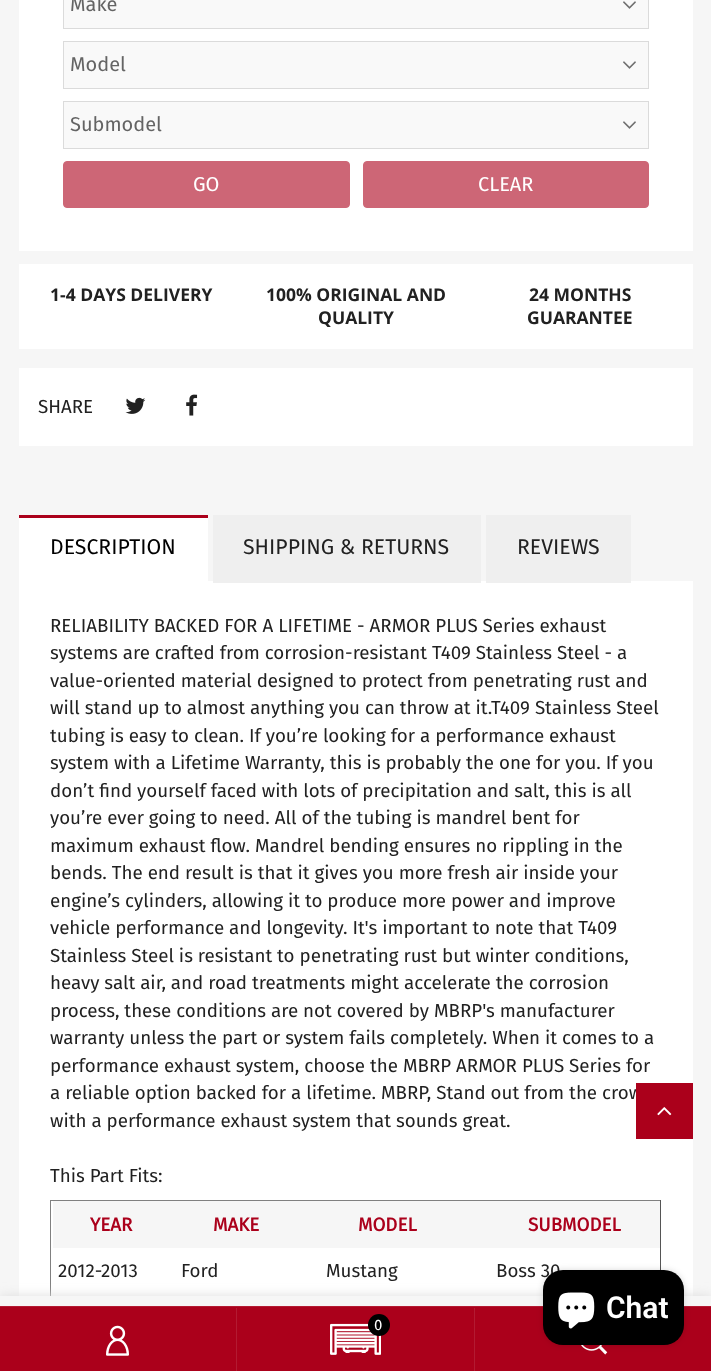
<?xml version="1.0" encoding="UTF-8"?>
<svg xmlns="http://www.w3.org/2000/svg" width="711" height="1371">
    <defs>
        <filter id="blur1" x="-50%" y="-200%" width="200%" height="500%"><feGaussianBlur stdDeviation="6"/></filter>
        <filter id="blur2" x="-50%" y="-200%" width="200%" height="500%"><feGaussianBlur stdDeviation="3"/></filter>
    </defs>
    <rect width="100%" height="100%" fill="#F6F6F6"/>
    <rect x="19" y="0" width="674" height="251" fill="#FFFFFF"/>
    <rect x="64" y="0" width="584" height="28" fill="#F9F9F9"/>
    <image x="623" y="1" width="13" height="8" href="img_01.png"/>
    <rect x="63.5" y="-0.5" width="585" height="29" fill="none" stroke="#DBDBDB"/>
    <text x="70" y="11" font-family="Fira Sans" font-size="20" fill="#646464">Make</text>
    <rect x="64" y="42" width="584" height="46" fill="#F9F9F9"/>
    <image x="623" y="61" width="13" height="8" href="img_01.png"/>
    <rect x="63.5" y="41.5" width="585" height="47" fill="none" stroke="#DBDBDB"/>
    <text x="70" y="71" font-family="Fira Sans" font-size="20" fill="#646464">Model</text>
    <rect x="64" y="102" width="584" height="46" fill="#F9F9F9"/>
    <image x="623" y="121" width="13" height="8" href="img_01.png"/>
    <rect x="63.5" y="101.5" width="585" height="47" fill="none" stroke="#DBDBDB"/>
    <text x="70" y="131" font-family="Fira Sans" font-size="20" fill="#646464">Submodel</text>
    <rect x="63.5" y="161.5" width="286" height="46" rx="3.5" fill="#CD6676" stroke="#CD6676"/>
    <text x="193" y="191" font-family="Fira Sans" font-size="20" fill="#FFFFFF">GO</text>
    <rect x="363.5" y="161.5" width="285" height="46" rx="3.5" fill="#CD6676" stroke="#CD6676"/>
    <text x="478" y="191" font-family="Fira Sans" font-size="20" fill="#FFFFFF">CLEAR</text>
    <rect x="19" y="264" width="674" height="85" fill="#FFFFFF"/>
    <text x="50" y="301" font-family="Open Sans" font-size="17.5" font-weight="700" fill="#212121">1-4 DAYS DELIVERY</text>
    <text x="266" y="301" font-family="Open Sans" font-size="17.5" font-weight="700" fill="#212121">100% ORIGINAL AND</text>
    <text x="318" y="324" font-family="Open Sans" font-size="17.5" font-weight="700" fill="#212121">QUALITY</text>
    <text x="529" y="301" font-family="Open Sans" font-size="17.5" font-weight="700" fill="#212121">24 MONTHS</text>
    <text x="527" y="324" font-family="Open Sans" font-size="17.5" font-weight="700" fill="#212121">GUARANTEE</text>
    <rect x="19" y="368" width="674" height="78" fill="#FFFFFF"/>
    <text x="38" y="413" font-family="Fira Sans" font-size="18.75" fill="#212121">SHARE</text>
    <image x="125" y="397" width="21" height="17" href="img_02.png"/>
    <image x="186" y="394" width="12" height="22" href="img_03.png"/>
    <rect x="19" y="518" width="189" height="63" fill="#FFFFFF"/>
    <rect x="19" y="515" width="189" height="3" fill="#AB001B"/>
    <text x="50" y="554" font-family="Fira Sans" font-size="21.25" fill="#000000">DESCRIPTION</text>
    <rect x="19" y="581" width="674" height="715" fill="#FFFFFF"/>
    <rect x="213" y="515" width="268" height="68" fill="#EFEFEF"/>
    <text x="243" y="554" font-family="Fira Sans" font-size="21.25" fill="#212121">SHIPPING &amp; RETURNS</text>
    <rect x="486" y="515" width="145" height="68" fill="#EFEFEF"/>
    <text x="517" y="554" font-family="Fira Sans" font-size="21.25" fill="#212121">REVIEWS</text>
    <text font-family="Fira Sans" font-size="18.75" fill="#212121">
        <tspan x="50" y="632">RELIABILITY BACKED FOR A LIFETIME - ARMOR PLUS Series exhaust</tspan>
        <tspan x="50" y="659">systems are crafted from corrosion-resistant T409 Stainless Steel - a</tspan>
        <tspan x="50" y="687">value-oriented material designed to protect from penetrating rust and</tspan>
        <tspan x="50" y="714">will stand up to almost anything you can throw at it.T409 Stainless Steel</tspan>
        <tspan x="50" y="742">tubing is easy to clean. If you’re looking for a performance exhaust</tspan>
        <tspan x="50" y="769">system with a Lifetime Warranty, this is probably the one for you. If you</tspan>
        <tspan x="50" y="797">don’t find yourself faced with lots of precipitation and salt, this is all</tspan>
        <tspan x="50" y="824">you’re ever going to need. All of the tubing is mandrel bent for</tspan>
        <tspan x="50" y="852">maximum exhaust flow. Mandrel bending ensures no rippling in the</tspan>
        <tspan x="50" y="879">bends. The end result is that it gives you more fresh air inside your</tspan>
        <tspan x="50" y="907">engine’s cylinders, allowing it to produce more power and improve</tspan>
        <tspan x="50" y="934">vehicle performance and longevity. It's important to note that T409</tspan>
        <tspan x="50" y="962">Stainless Steel is resistant to penetrating rust but winter conditions,</tspan>
        <tspan x="50" y="989">heavy salt air, and road treatments might accelerate the corrosion</tspan>
        <tspan x="50" y="1017">process, these conditions are not covered by MBRP's manufacturer</tspan>
        <tspan x="50" y="1044">warranty unless the part or system fails completely. When it comes to a</tspan>
        <tspan x="50" y="1072">performance exhaust system, choose the MBRP ARMOR PLUS Series for</tspan>
        <tspan x="50" y="1099">a reliable option backed for a lifetime. MBRP, Stand out from the crow</tspan>
        <tspan x="50" y="1127">with a performance exhaust system that sounds great.</tspan>
    </text>
    <text x="50" y="1182" font-family="Fira Sans" font-size="18.75" fill="#212121">This Part Fits:</text>
    <rect x="50" y="1200" width="611" height="1" fill="#808080"/>
    <rect x="660" y="1200" width="1" height="70" fill="#555555"/>
    <rect x="50" y="1200" width="1" height="96" fill="#808080"/>
    <rect x="53" y="1201" width="607" height="47" fill="#F6F6F6"/>
    <text x="90" y="1231" font-family="Fira Sans" font-size="18.75" font-weight="700" fill="#AB001B">YEAR</text>
    <text x="213" y="1231" font-family="Fira Sans" font-size="18.75" font-weight="700" fill="#AB001B">MAKE</text>
    <text x="358" y="1231" font-family="Fira Sans" font-size="18.75" font-weight="700" fill="#AB001B">MODEL</text>
    <text x="528" y="1231" font-family="Fira Sans" font-size="18.75" font-weight="700" fill="#AB001B">SUBMODEL</text>
    <text x="58" y="1277" font-family="Fira Sans" font-size="18.75" fill="#212121">2012-2013</text>
    <text x="181" y="1277" font-family="Fira Sans" font-size="18.75" fill="#212121">Ford</text>
    <text x="326" y="1277" font-family="Fira Sans" font-size="18.75" fill="#212121">Mustang</text>
    <text x="496" y="1277" font-family="Fira Sans" font-size="18.75" fill="#212121">Boss 30</text>
    <rect x="636" y="1083" width="57" height="56" fill="#AB001B"/>
    <image x="657" y="1107" width="15" height="9" href="img_04.png"/>
    <rect x="0" y="1296" width="711" height="75" fill="#DDDDDD" filter="url(#blur1)"/>
    <rect x="0" y="1296" width="711" height="10" fill="#F6F6F6"/>
    <rect x="0" y="1307" width="711" height="64" fill="#AB001B"/>
    <rect x="0" y="1306" width="711" height="1" fill="#B31A32"/>
    <rect x="236" y="1308" width="1" height="63" fill="#B31A32"/>
    <image x="106" y="1325" width="23" height="31" href="img_05.png"/>
    <rect x="474" y="1308" width="1" height="63" fill="#B31A32"/>
    <image x="330" y="1323" width="51" height="32" href="img_06.png"/>
    <circle cx="379" cy="1325" r="11" fill="#000000"/>
    <text x="374" y="1330" font-family="Fira Sans" font-size="15" fill="#FFFFFF">0</text>
    <image x="581" y="1345" width="27" height="10" href="img_07.png"/>
    <rect x="543" y="1270" width="141" height="75" rx="20" fill="#000000" fill-opacity="0.15" filter="url(#blur2)"/>
    <rect x="543" y="1270" width="141" height="75" rx="20" fill="#000000"/>
    <image x="558" y="1292" width="37" height="37" href="img_08.png"/>
    <text x="606" y="1318" font-family="Roboto" font-size="30" font-weight="600" fill="#FFFFFF">Chat</text>
</svg>
